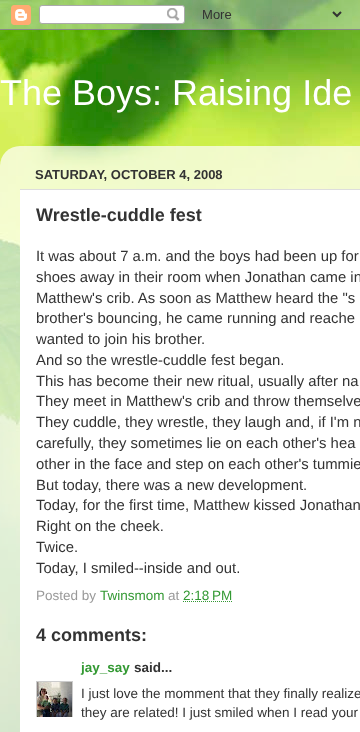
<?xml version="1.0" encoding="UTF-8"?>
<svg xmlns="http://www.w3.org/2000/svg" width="360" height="732">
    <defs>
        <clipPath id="clip1"><rect x="20" y="161" width="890" height="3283"/></clipPath>
        <clipPath id="clip2"><rect x="36" y="681" width="37" height="36"/></clipPath>
    </defs>
    <rect width="100%" height="100%" fill="#FFFFFF"/>
    <image x="0" y="0" width="360" height="732" href="img_01.png"/>
    <image x="0" y="0" width="360" height="30" href="img_02.png"/>
    <text x="0" y="105" font-family="Liberation Sans" font-size="36" fill="#FFFFFF">The Boys: Raising Ide</text>
    <image x="0" y="146" width="360" height="586" href="img_03.png"/>
    <text x="35" y="179" font-family="Liberation Sans" font-size="13" font-weight="700" fill="#333333">SATURDAY, OCTOBER 4, 2008</text>
    <rect x="20" y="190" width="340" height="542" fill="#FFFFFF"/>
    <g clip-path="url(#clip1)">
        <rect x="15.5" y="189.5" width="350" height="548" rx="4.5" fill="none" stroke="#DDDDDD"/>
    </g>
    <text x="36" y="221" font-family="Liberation Sans" font-size="18" font-weight="700" fill="#333333">Wrestle-cuddle fest</text>
    <text font-family="Liberation Sans" font-size="14.85" fill="#333333">
        <tspan x="36" y="261">It was about 7 a.m. and the boys had been up for</tspan>
        <tspan x="36" y="282">shoes away in their room when Jonathan came in</tspan>
        <tspan x="36" y="303">Matthew's crib. As soon as Matthew heard the "s</tspan>
        <tspan x="36" y="323">brother's bouncing, he came running and reache</tspan>
        <tspan x="36" y="344">wanted to join his brother.</tspan>
        <tspan x="36" y="365">And so the wrestle-cuddle fest began.</tspan>
        <tspan x="36" y="386">This has become their new ritual, usually after na</tspan>
        <tspan x="36" y="406">They meet in Matthew's crib and throw themselve</tspan>
        <tspan x="36" y="427">They cuddle, they wrestle, they laugh and, if I'm n</tspan>
        <tspan x="36" y="448">carefully, they sometimes lie on each other's hea</tspan>
        <tspan x="36" y="469">other in the face and step on each other's tummie</tspan>
        <tspan x="36" y="490">But today, there was a new development.</tspan>
        <tspan x="36" y="510">Today, for the first time, Matthew kissed Jonathan</tspan>
        <tspan x="36" y="531">Right on the cheek.</tspan>
        <tspan x="36" y="552">Twice.</tspan>
        <tspan x="36" y="573">Today, I smiled--inside and out.</tspan>
    </text>
    <text x="36" y="600" font-family="Liberation Sans" font-size="13.5" fill="#999999">Posted by</text>
    <text x="100" y="600" font-family="Liberation Sans" font-size="13.5" fill="#339933">Twinsmom</text>
    <text x="168" y="600" font-family="Liberation Sans" font-size="13.5" fill="#999999">at</text>
    <text x="183" y="600" font-family="Liberation Sans" font-size="13.5" fill="#339933">2:18 PM</text>
    <path d="M 183 601.5 H 232" fill="none" stroke="#339933" stroke-dasharray="1 1"/>
    <text x="36" y="641" font-family="Liberation Sans" font-size="18" font-weight="700" fill="#333333">4 comments:</text>
    <text x="81" y="672" font-family="Liberation Sans" font-size="13.5" font-weight="700" fill="#339933">jay_say</text>
    <text x="134" y="672" font-family="Liberation Sans" font-size="13.5" font-weight="700" fill="#333333">said...</text>
    <g clip-path="url(#clip2)">
        <rect x="36.5" y="681.5" width="36" height="36" fill="none" stroke="#CCCCCC"/>
    </g>
    <image x="37" y="682" width="35" height="35" href="img_04.png"/>
    <text font-family="Liberation Sans" font-size="13.5" fill="#333333">
        <tspan x="81" y="698">I just love the momment that they finally realize</tspan>
        <tspan x="81" y="717">they are related! I just smiled when I read your</tspan>
    </text>
</svg>
